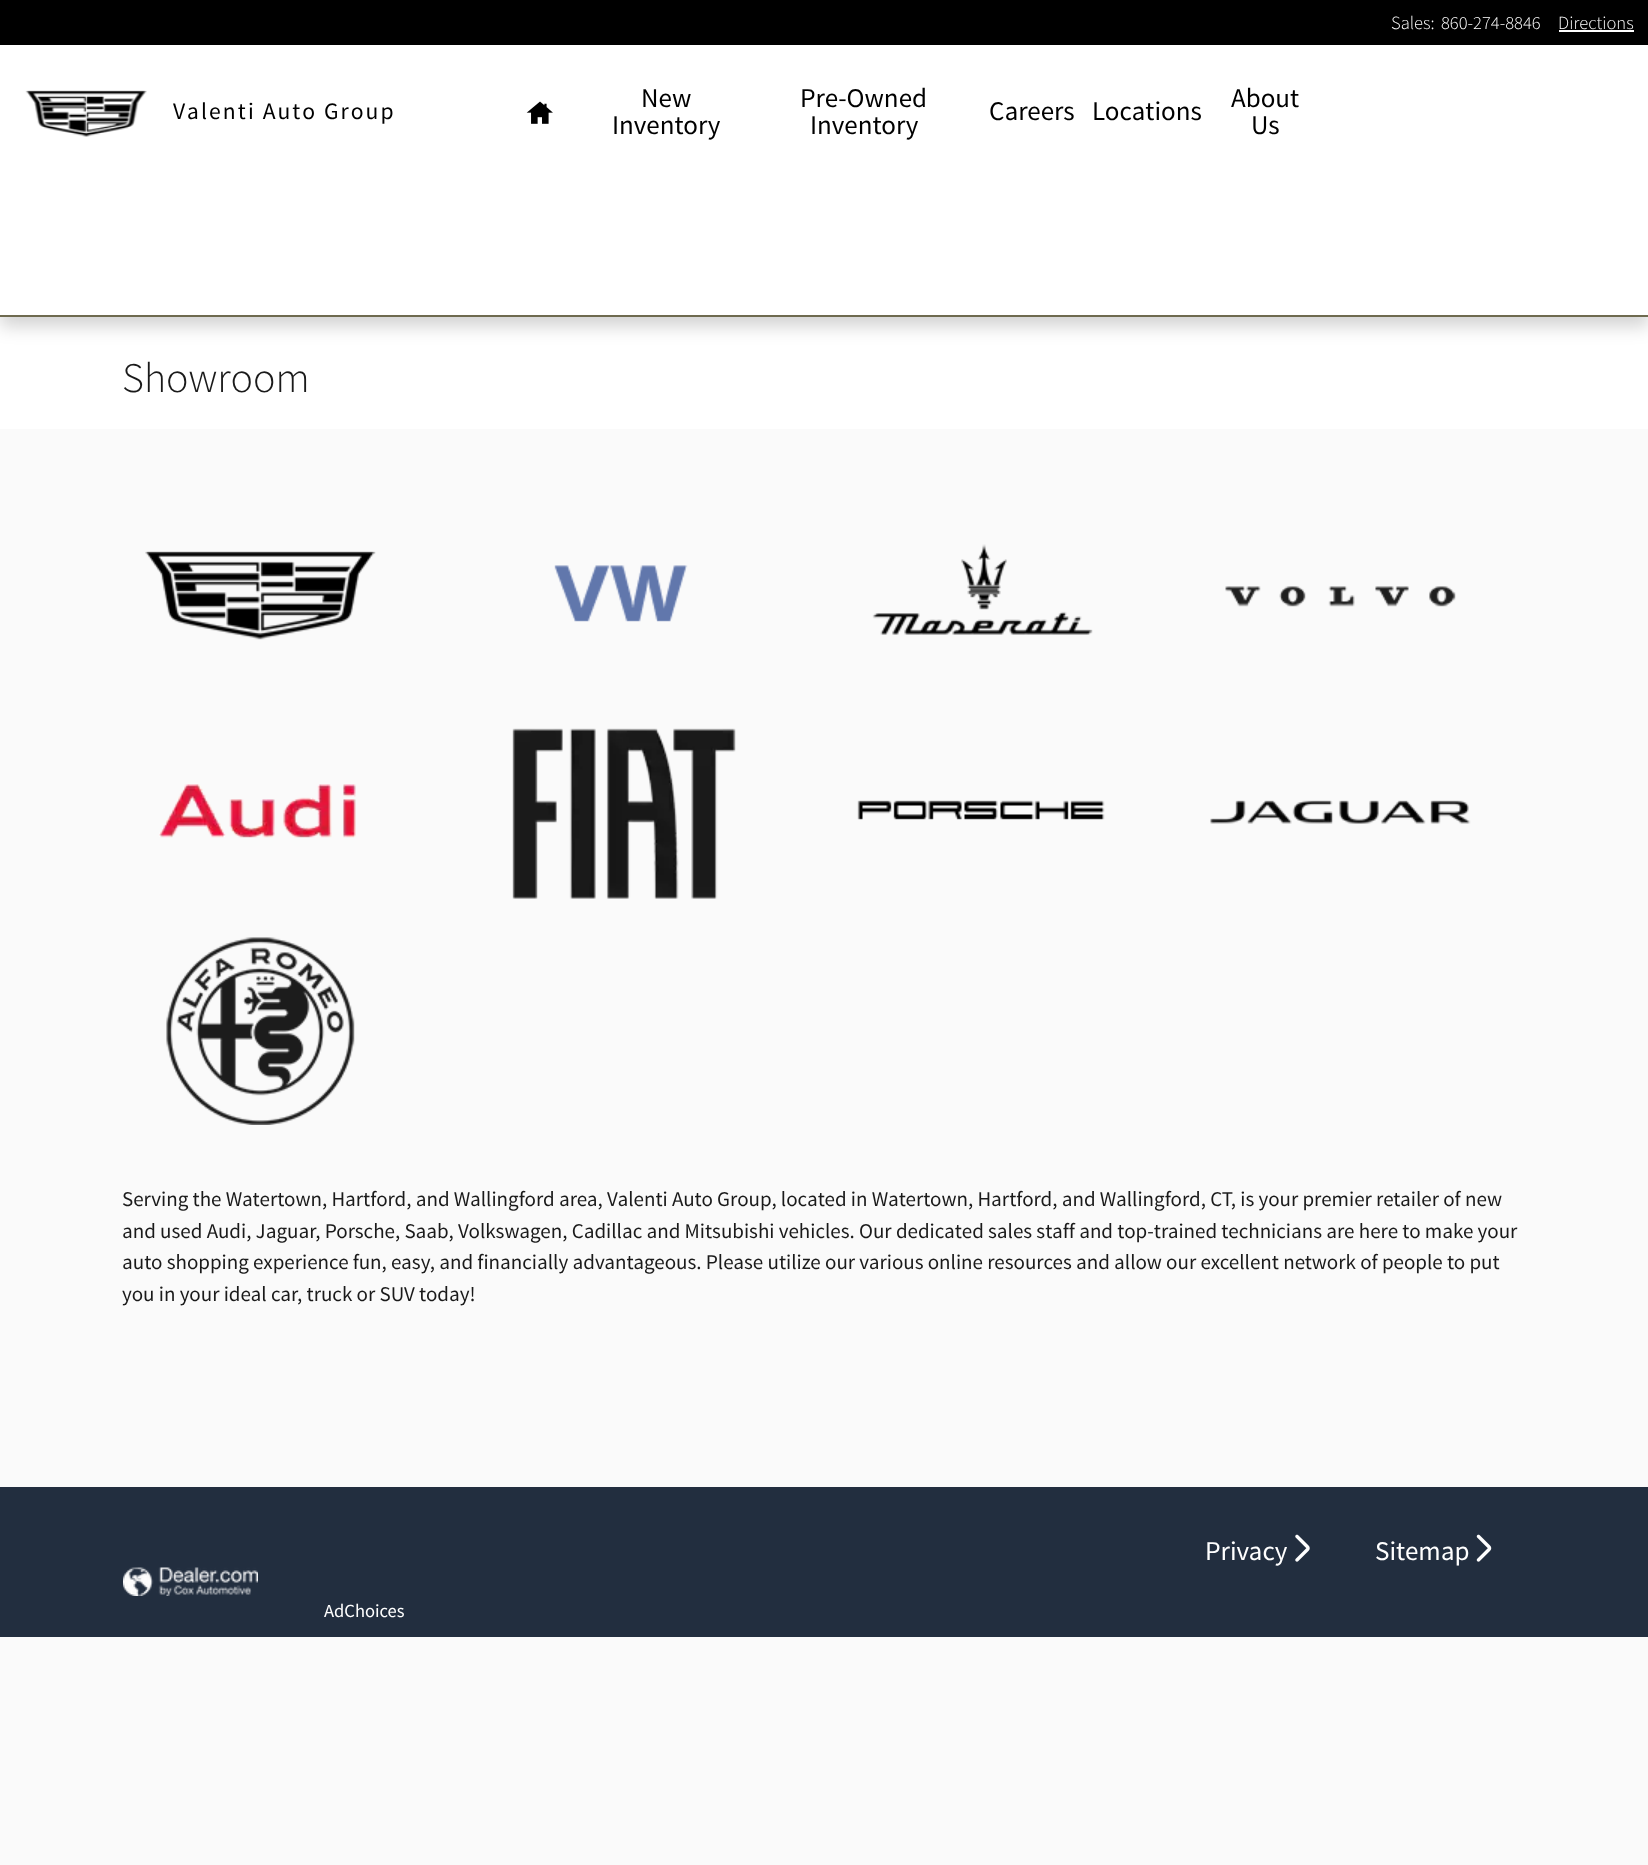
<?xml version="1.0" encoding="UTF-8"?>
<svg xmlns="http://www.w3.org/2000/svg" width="1648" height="1865">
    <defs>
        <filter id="blur1" x="-50%" y="-200%" width="200%" height="500%"><feGaussianBlur stdDeviation="9"/></filter>
    </defs>
    <rect width="100%" height="100%" fill="#FAFAFA"/>
    <rect x="0" y="317" width="1648" height="112" fill="#FFFFFF"/>
    <rect x="0" y="9" width="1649" height="317" fill="#000000" fill-opacity="0.18" filter="url(#blur1)"/>
    <rect x="0" y="45" width="1648" height="270" fill="#FFFFFF"/>
    <rect x="0" y="315" width="1648" height="2" fill="#6E6A4F"/>
    <rect x="0" y="0" width="1648" height="45" fill="#000000"/>
    <text x="1391" y="29" font-family="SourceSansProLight" font-size="18.5" font-weight="300" fill="#FFFFFF">Sales:</text>
    <text x="1441" y="29" font-family="SourceSansProLight" font-size="18.5" font-weight="300" fill="#FFFFFF">860-274-8846</text>
    <text x="1558" y="29" font-family="SourceSansProLight" font-size="18.5" font-weight="300" fill="#FFFFFF">Directions</text>
    <rect x="1559" y="30" width="75" height="2" fill="#FFFFFF"/>
    <image x="25" y="90" width="122" height="47" href="img_01.png"/>
    <text x="173" y="119" font-family="Source Sans Pro" font-size="23.6" letter-spacing="2.1" fill="#000000">Valenti Auto Group</text>
    <image x="526" y="101" width="27" height="23" href="img_02.png"/>
    <text x="641" y="107" font-family="Source Sans Pro" font-size="27" fill="#000000">New</text>
    <text x="612" y="134" font-family="Source Sans Pro" font-size="27" fill="#000000">Inventory</text>
    <text x="800" y="107" font-family="Source Sans Pro" font-size="27" fill="#000000">Pre-Owned</text>
    <text x="810" y="134" font-family="Source Sans Pro" font-size="27" fill="#000000">Inventory</text>
    <text x="989" y="120" font-family="Source Sans Pro" font-size="27" fill="#000000">Careers</text>
    <text x="1092" y="120" font-family="Source Sans Pro" font-size="27" fill="#000000">Locations</text>
    <text x="1231" y="107" font-family="Source Sans Pro" font-size="27" fill="#000000">About</text>
    <text x="1251" y="134" font-family="Source Sans Pro" font-size="27" fill="#000000">Us</text>
    <text x="122" y="392" font-family="SourceSansProLight" font-size="42" font-weight="300" fill="#1A1A1A">Showroom</text>
    <image x="145" y="551" width="231" height="89" href="img_03.png"/>
    <image x="554" y="565" width="134" height="57" href="img_04.png"/>
    <image x="872" y="544" width="221" height="91" href="img_05.png"/>
    <image x="1225" y="586" width="231" height="21" href="img_06.png"/>
    <image x="159" y="784" width="197" height="54" href="img_07.png"/>
    <image x="512" y="728" width="224" height="171" href="img_08.png"/>
    <image x="857" y="800" width="248" height="20" href="img_09.png"/>
    <image x="1210" y="800" width="261" height="24" href="img_10.png"/>
    <image x="166" y="937" width="189" height="188" href="img_11.png"/>
    <text font-family="Source Sans Pro" font-size="21" fill="#1A1A1A">
        <tspan x="122" y="1206">Serving the Watertown, Hartford, and Wallingford area, Valenti Auto Group, located in Watertown, Hartford, and Wallingford, CT, is your premier retailer of new</tspan>
        <tspan x="122" y="1238">and used Audi, Jaguar, Porsche, Saab, Volkswagen, Cadillac and Mitsubishi vehicles. Our dedicated sales staff and top-trained technicians are here to make your</tspan>
        <tspan x="122" y="1269">auto shopping experience fun, easy, and financially advantageous. Please utilize our various online resources and allow our excellent network of people to put</tspan>
        <tspan x="122" y="1301">you in your ideal car, truck or SUV today!</tspan>
    </text>
    <rect x="0" y="1487" width="1648" height="150" fill="#222E3F"/>
    <text x="1205" y="1560" font-family="Source Sans Pro" font-size="27" fill="#FFFFFF">Privacy</text>
    <image x="1295" y="1534" width="15" height="28" href="img_12.png"/>
    <text x="1375" y="1560" font-family="Source Sans Pro" font-size="27" fill="#FFFFFF">Sitemap</text>
    <image x="1476" y="1534" width="16" height="28" href="img_13.png"/>
    <image x="123" y="1567" width="135" height="29" href="img_14.png"/>
    <text x="324" y="1617" font-family="Source Sans Pro" font-size="18.5" fill="#FFFFFF">AdChoices</text>
</svg>
